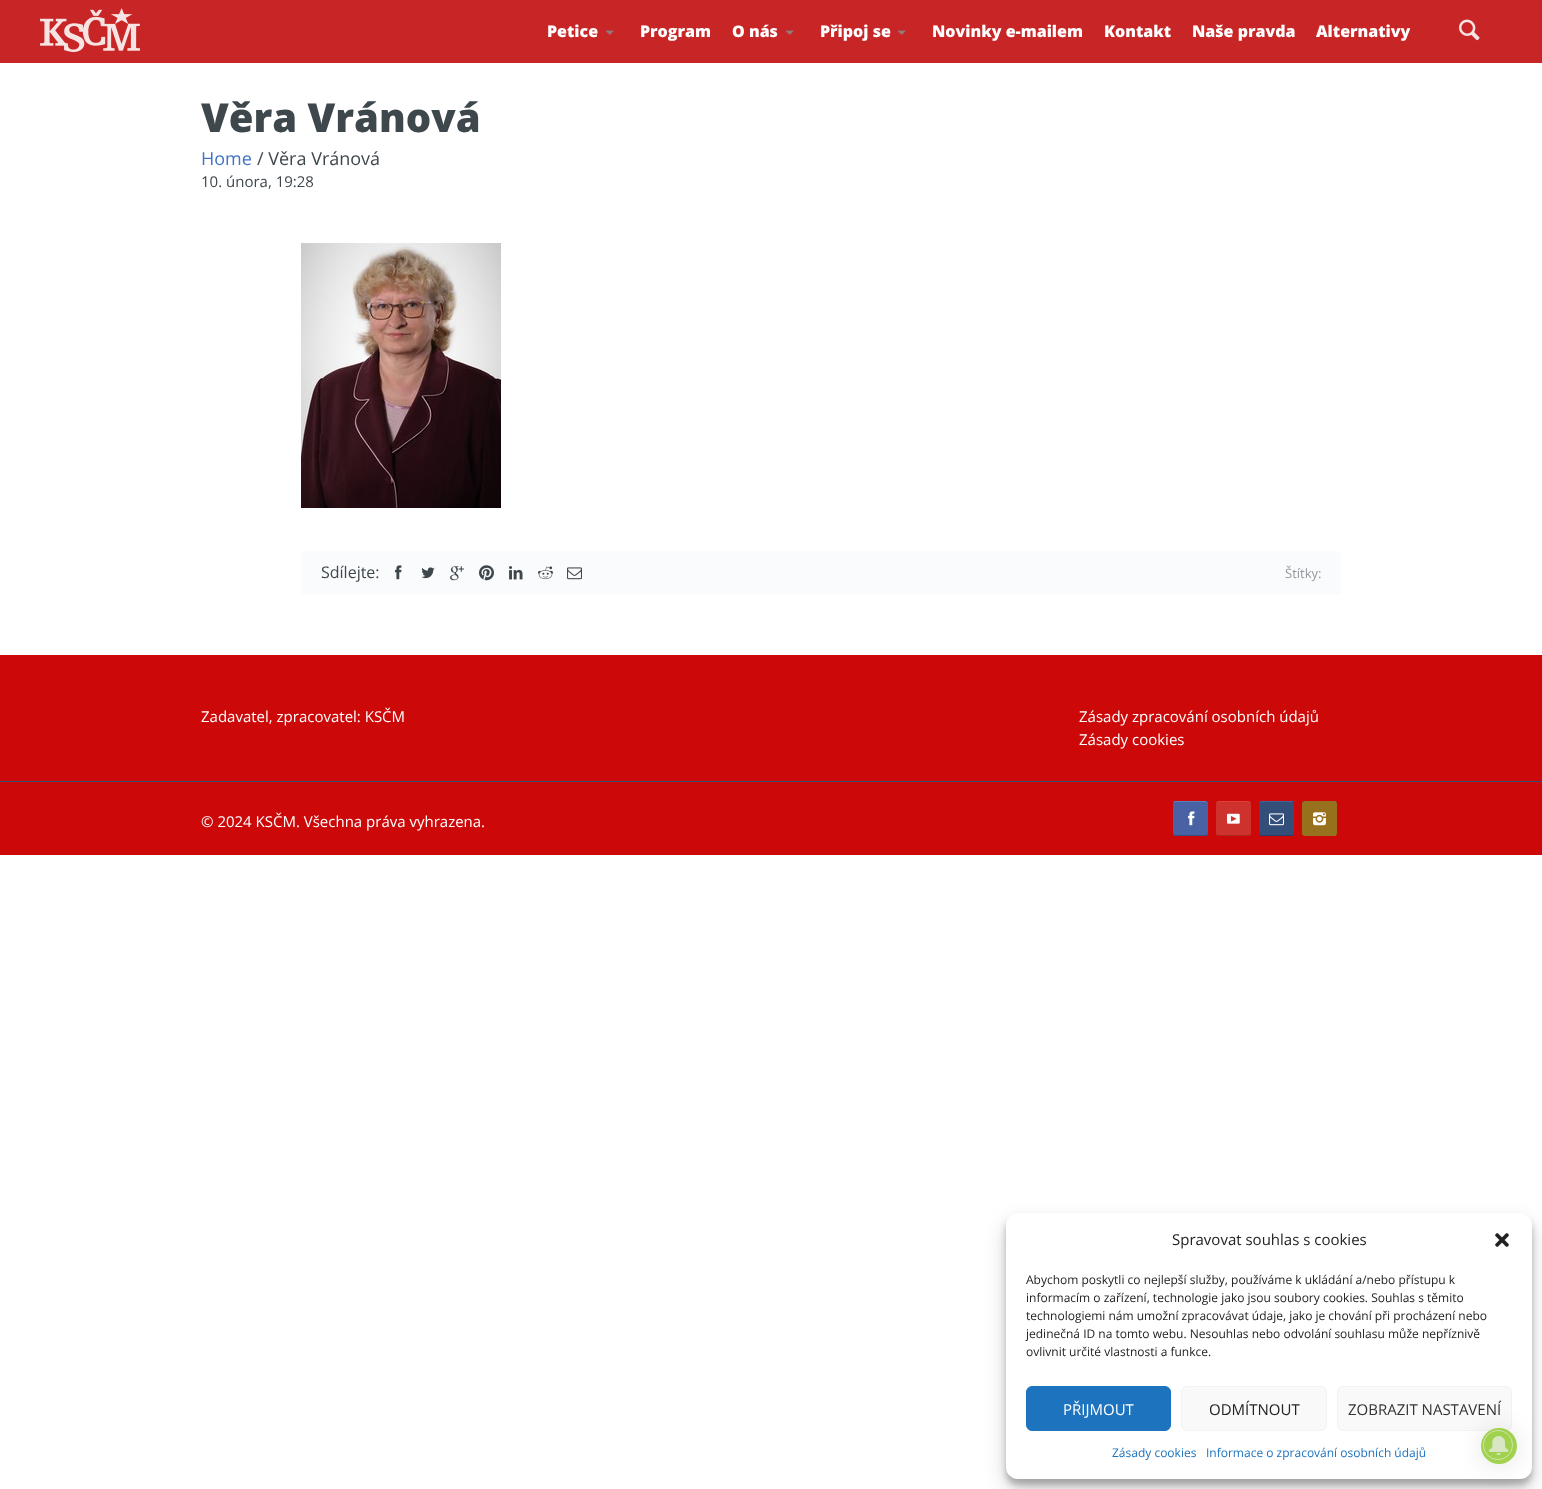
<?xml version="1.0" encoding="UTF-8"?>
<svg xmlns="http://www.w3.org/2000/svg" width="1542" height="1489">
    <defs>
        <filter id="blur1" x="-50%" y="-200%" width="200%" height="500%"><feGaussianBlur stdDeviation="3"/></filter>
        <filter id="blur2" x="-50%" y="-200%" width="200%" height="500%"><feGaussianBlur stdDeviation="10"/></filter>
        <clipPath id="clip1"><path d="M 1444 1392 H 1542 V 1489 H 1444 Z M 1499 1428 C 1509 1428 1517 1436 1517 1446 C 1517 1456 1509 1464 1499 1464 C 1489 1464 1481 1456 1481 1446 C 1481 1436 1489 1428 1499 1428 Z" clip-rule="evenodd"/></clipPath>
        <filter id="blur3" x="-50%" y="-200%" width="200%" height="500%"><feGaussianBlur stdDeviation="12"/></filter>
    </defs>
    <rect width="100%" height="100%" fill="#FFFFFF"/>
    <rect x="0" y="0" width="1542" height="63" fill="#C82626"/>
    <image x="40" y="8" width="100" height="44" href="img_01.png"/>
    <text x="547" y="37" font-family="Open Sans" font-size="16" font-weight="800" fill="#FFFFFF">Petice</text>
    <image x="606" y="30" width="8" height="5" href="img_02.png"/>
    <text x="640" y="37" font-family="Open Sans" font-size="16" font-weight="800" fill="#FFFFFF">Program</text>
    <text x="732" y="37" font-family="Open Sans" font-size="16" font-weight="800" fill="#FFFFFF">O nás</text>
    <image x="786" y="30" width="8" height="5" href="img_02.png"/>
    <text x="820" y="37" font-family="Open Sans" font-size="16" font-weight="800" fill="#FFFFFF">Připoj se</text>
    <image x="898" y="30" width="8" height="5" href="img_02.png"/>
    <text x="932" y="37" font-family="Open Sans" font-size="16" font-weight="800" fill="#FFFFFF">Novinky e-mailem</text>
    <text x="1104" y="37" font-family="Open Sans" font-size="16" font-weight="800" fill="#FFFFFF">Kontakt</text>
    <text x="1192" y="37" font-family="Open Sans" font-size="16" font-weight="800" fill="#FFFFFF">Naše pravda</text>
    <text x="1316" y="37" font-family="Open Sans" font-size="16" font-weight="800" fill="#FFFFFF">Alternativy</text>
    <image x="1459" y="19" width="21" height="22" href="img_03.png"/>
    <text x="201" y="132" font-family="Open Sans" font-size="40" font-weight="800" fill="#3E474C">Věra Vránová</text>
    <text x="201" y="165" font-family="Open Sans" font-size="18" fill="#4174C5">Home</text>
    <text x="257" y="165" font-family="Open Sans" font-size="18" fill="#3E474C">/ Věra Vránová</text>
    <text x="201" y="187" font-family="Open Sans" font-size="15" fill="#3E474C">10. února, 19:28</text>
    <image x="301" y="243" width="200" height="265" href="img_04.png"/>
    <rect x="301" y="551" width="1040" height="44" rx="3" fill="#FAFBFD"/>
    <text x="321" y="578" font-family="Open Sans" font-size="16" fill="#3E474C">Sdílejte:</text>
    <image x="395" y="565" width="7" height="15" href="img_05.png"/>
    <image x="421" y="567" width="14" height="12" href="img_06.png"/>
    <image x="450" y="566" width="14" height="15" href="img_07.png"/>
    <image x="479" y="565" width="15" height="16" href="img_08.png"/>
    <image x="509" y="566" width="14" height="14" href="img_09.png"/>
    <image x="538" y="566" width="15" height="14" href="img_10.png"/>
    <image x="567" y="567" width="15" height="13" href="img_11.png"/>
    <text x="1285" y="578" font-family="Open Sans" font-size="13" fill="#95999E">Štítky:</text>
    <rect x="0" y="655" width="1542" height="126" fill="#CC0808"/>
    <text x="201" y="722" font-family="Open Sans" font-size="15" fill="#FFFFFF">Zadavatel, zpracovatel: KSČM</text>
    <text font-family="Open Sans" font-size="15" fill="#FFFFFF">
        <tspan x="1079" y="722">Zásady zpracování osobních údajů</tspan>
        <tspan x="1079" y="745">Zásady cookies</tspan>
    </text>
    <rect x="0" y="782" width="1542" height="73" fill="#CC0808"/>
    <rect x="0" y="781" width="1542" height="1" fill="#324E79"/>
    <text x="201" y="827" font-family="Open Sans" font-size="15" fill="#FFFFFF">© 2024 KSČM. Všechna práva vyhrazena.</text>
    <rect x="1173" y="801" width="35" height="35" rx="3" fill="#4862A3"/>
    <path d="M 1176 801 C 1174.5 801 1173 802.5 1173 804 C 1173 803 1174.5 802 1176 802 H 1205 C 1206.5 802 1208 803 1208 804 C 1208 802.5 1206.5 801 1205 801 Z" fill="#5E80BF"/>
    <path d="M 1205 836 C 1206.5 836 1208 834.5 1208 833 C 1208 834 1206.5 835 1205 835 H 1176 C 1174.5 835 1173 834 1173 833 C 1173 834.5 1174.5 836 1176 836 Z" fill="#3A4E82"/>
    <image x="1188" y="811" width="7" height="15" href="img_12.png"/>
    <rect x="1216" y="801" width="35" height="35" rx="3" fill="#CD322C"/>
    <path d="M 1219 801 C 1217.5 801 1216 802.5 1216 804 C 1216 803 1217.5 802 1219 802 H 1248 C 1249.5 802 1251 803 1251 804 C 1251 802.5 1249.5 801 1248 801 Z" fill="#DC4139"/>
    <path d="M 1248 836 C 1249.5 836 1251 834.5 1251 833 C 1251 834 1249.5 835 1248 835 H 1219 C 1217.5 835 1216 834 1216 833 C 1216 834.5 1217.5 836 1219 836 Z" fill="#AC2823"/>
    <image x="1227" y="813" width="13" height="11" href="img_13.png"/>
    <rect x="1259" y="801" width="35" height="35" rx="3" fill="#324E79"/>
    <path d="M 1262 801 C 1260.5 801 1259 802.5 1259 804 C 1259 803 1260.5 802 1262 802 H 1291 C 1292.5 802 1294 803 1294 804 C 1294 802.5 1292.5 801 1291 801 Z" fill="#41669E"/>
    <path d="M 1291 836 C 1292.5 836 1294 834.5 1294 833 C 1294 834 1292.5 835 1291 835 H 1262 C 1260.5 835 1259 834 1259 833 C 1259 834.5 1260.5 836 1262 836 Z" fill="#243F6A"/>
    <image x="1269" y="813" width="15" height="13" href="img_14.png"/>
    <rect x="1302" y="801" width="35" height="35" rx="3" fill="#98711F"/>
    <rect x="1304" y="801" width="32" height="1" fill="#98711F"/>
    <rect x="1304" y="835" width="32" height="1" fill="#98711F"/>
    <image x="1313" y="812" width="13" height="14" href="img_15.png"/>
    <rect x="1006" y="1219" width="526" height="266" rx="12" fill="#000000" fill-opacity="0.23" filter="url(#blur1)"/>
    <rect x="1006" y="1223" width="526" height="266" rx="12" fill="#000000" fill-opacity="0.19" filter="url(#blur2)"/>
    <rect x="1006" y="1213" width="526" height="266" rx="12" fill="#FFFFFF"/>
    <text x="1172" y="1245" font-family="Open Sans" font-size="15" fill="#222222">Spravovat souhlas s cookies</text>
    <image x="1495" y="1233" width="14" height="14" href="img_16.png"/>
    <text font-family="Open Sans" font-size="12" fill="#222222">
        <tspan x="1026" y="1284">Abychom poskytli co nejlepší služby, používáme k ukládání a/nebo přístupu k</tspan>
        <tspan x="1026" y="1302">informacím o zařízení, technologie jako jsou soubory cookies. Souhlas s těmito</tspan>
        <tspan x="1026" y="1320">technologiemi nám umožní zpracovávat údaje, jako je chování při procházení nebo</tspan>
        <tspan x="1026" y="1338">jedinečná ID na tomto webu. Nesouhlas nebo odvolání souhlasu může nepříznivě</tspan>
        <tspan x="1026" y="1356">ovlivnit určité vlastnosti a funkce.</tspan>
    </text>
    <rect x="1026.5" y="1386.5" width="144" height="44" rx="5.5" fill="#1E73BE" stroke="#1E73BE"/>
    <text x="1063" y="1415" font-family="Open Sans" font-size="15" fill="#FFFFFF">PŘIJMOUT</text>
    <rect x="1181.5" y="1386.5" width="145" height="44" rx="5.5" fill="#F9F9F9" stroke="#F2F2F2"/>
    <text x="1209" y="1415" font-family="Open Sans" font-size="15" fill="#222222">ODMÍTNOUT</text>
    <rect x="1337.5" y="1386.5" width="174" height="44" rx="5.5" fill="#F9F9F9" stroke="#F2F2F2"/>
    <text x="1348" y="1415" font-family="Open Sans" font-size="15" fill="#333333">ZOBRAZIT NASTAVENÍ</text>
    <text x="1112" y="1457" font-family="Open Sans" font-size="12" fill="#1E73BE">Zásady cookies</text>
    <text x="1206" y="1457" font-family="Open Sans" font-size="12" fill="#1E73BE">Informace o zpracování osobních údajů</text>
    <g clip-path="url(#clip1)">
        <rect x="1481" y="1429" width="36" height="36" rx="18" fill="#051B2C" fill-opacity="0.11" filter="url(#blur3)"/>
    </g>
    <circle cx="1499" cy="1446" r="18" fill="#82C312" fill-opacity="0.75"/>
    <circle cx="1498" cy="1445" r="14.6" fill="none" stroke="#ECECEC" stroke-opacity="0.75" stroke-width="0.8"/>
    <image x="1489" y="1436" width="20" height="20" href="img_17.png"/>
</svg>
